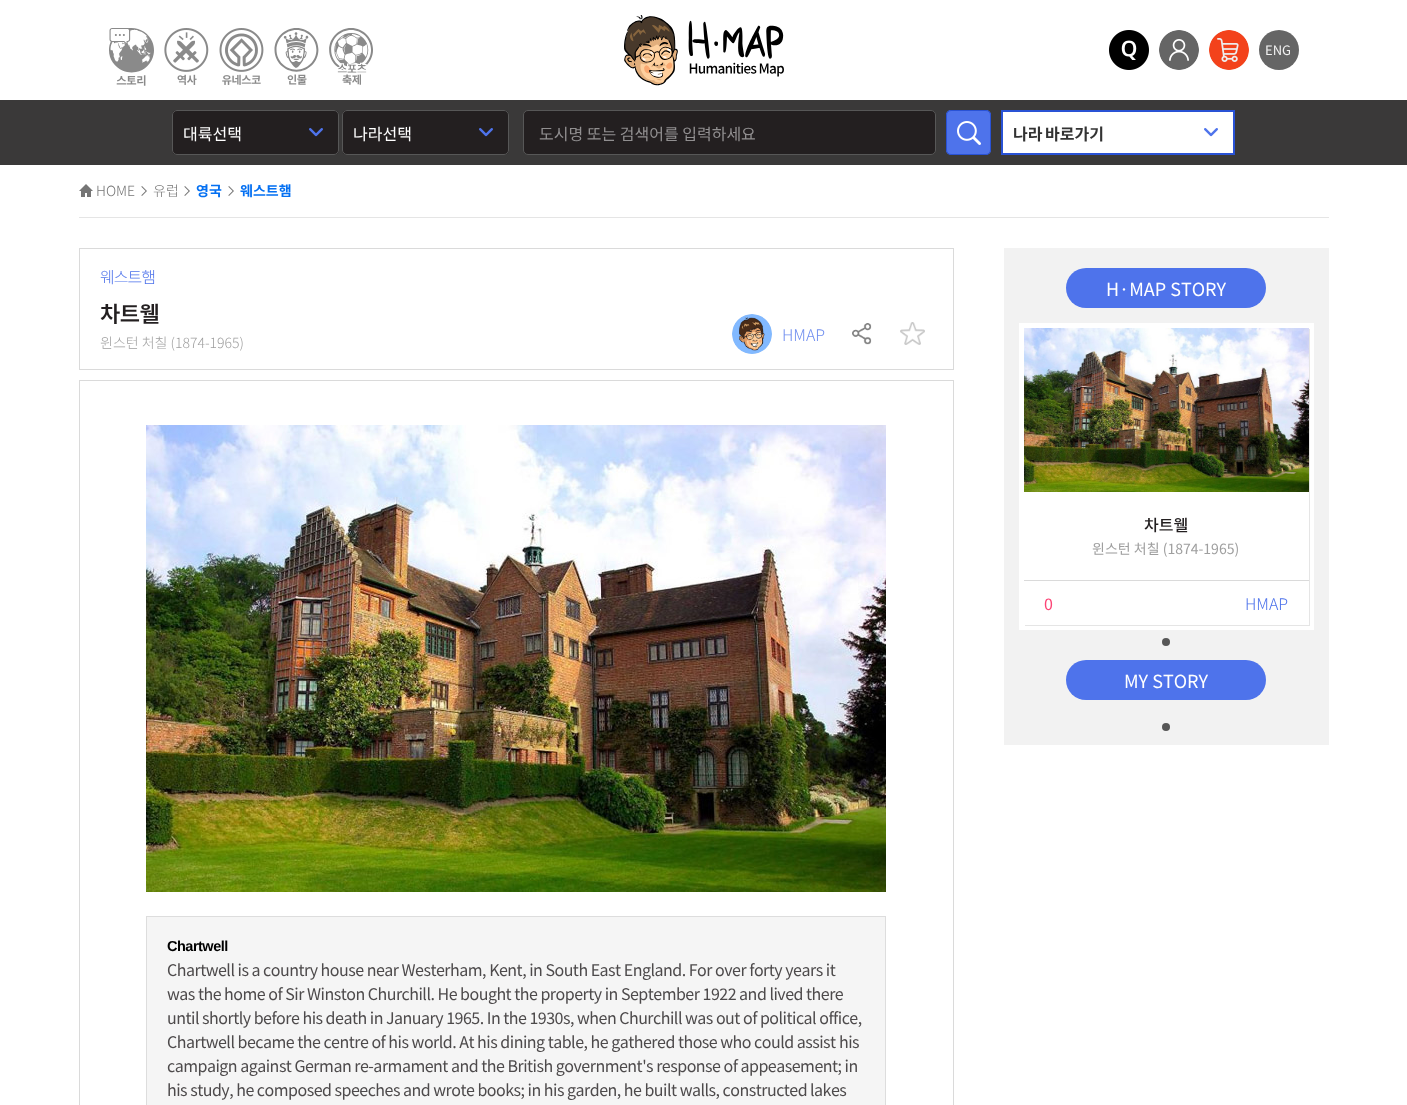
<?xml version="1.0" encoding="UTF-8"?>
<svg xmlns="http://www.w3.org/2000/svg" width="1407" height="1105">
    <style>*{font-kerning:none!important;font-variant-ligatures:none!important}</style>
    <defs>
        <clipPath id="clip1"><path d="M 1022 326 H 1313 V 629 H 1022 Z M 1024 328 H 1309 V 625 H 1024 Z" clip-rule="evenodd"/></clipPath>
        <filter id="blur1" x="-50%" y="-200%" width="200%" height="500%"><feGaussianBlur stdDeviation="0.5"/></filter>
    </defs>
    <rect width="100%" height="100%" fill="#FFFFFF"/>
    <image x="109" y="28" width="45" height="58" href="img_01.png"/>
    <image x="164" y="28" width="45" height="57" href="img_02.png"/>
    <image x="219" y="28" width="45" height="57" href="img_03.png"/>
    <image x="274" y="28" width="45" height="57" href="img_04.png"/>
    <image x="329" y="28" width="44" height="57" href="img_05.png"/>
    <image x="624" y="15" width="160" height="71" href="img_06.png"/>
    <image x="1109" y="30" width="40" height="40" href="img_07.png"/>
    <circle cx="1179" cy="50" r="20" fill="#F1F1F1"/>
    <image x="1159" y="30" width="40" height="40" href="img_08.png"/>
    <circle cx="1229" cy="50" r="20" fill="#F1F1F1"/>
    <image x="1209" y="30" width="40" height="40" href="img_09.png"/>
    <circle cx="1279" cy="50" r="20" fill="#656565"/>
    <text x="1265" y="55" font-family="Noto Sans KR" font-size="13" fill="#F1F1F1">ENG</text>
    <rect x="0" y="100" width="1407" height="65" fill="#3A3939"/>
    <rect x="172" y="110" width="167" height="45" rx="5" fill="#231F20"/>
    <image x="309" y="128" width="14" height="9" href="img_10.png"/>
    <rect x="172.5" y="110.5" width="166" height="44" rx="4.5" fill="none" stroke="#575757"/>
    <text x="183" y="140" font-family="Noto Sans KR" font-size="16" fill="#FFFFFF">대륙선택</text>
    <rect x="342" y="110" width="167" height="45" rx="5" fill="#231F20"/>
    <image x="479" y="128" width="14" height="9" href="img_10.png"/>
    <rect x="342.5" y="110.5" width="166" height="44" rx="4.5" fill="none" stroke="#575757"/>
    <text x="353" y="140" font-family="Noto Sans KR" font-size="16" fill="#FFFFFF">나라선택</text>
    <rect x="523.5" y="110.5" width="412" height="44" rx="4.5" fill="#231F20" stroke="#575757"/>
    <text x="539" y="140" font-family="Noto Sans KR" font-size="16" fill="#918F90">도시명 또는 검색어를 입력하세요</text>
    <rect x="946" y="110" width="45" height="45" rx="5" fill="#4E73EB"/>
    <image x="957" y="121" width="24" height="24" href="img_11.png"/>
    <rect x="946.5" y="110.5" width="44" height="44" rx="4.5" fill="none" stroke="#2952D5"/>
    <rect x="1003" y="112" width="230" height="41" fill="#FFFFFF"/>
    <image x="1204" y="128" width="14" height="9" href="img_12.png"/>
    <rect x="1002" y="111" width="232" height="43" fill="none" stroke="#2952D5" stroke-width="2"/>
    <text x="1013" y="140" word-spacing="-1" font-family="Noto Sans KR" font-size="16" font-weight="700" fill="#333333">나라 바로가기</text>
    <rect x="79" y="217" width="1250" height="1" fill="#E5E5E5"/>
    <image x="79" y="184" width="14" height="13" href="img_13.png"/>
    <text x="96" y="196" font-family="Noto Sans KR" font-size="14" font-weight="300" fill="#757575">HOME</text>
    <image x="141" y="186" width="6" height="10" href="img_14.png"/>
    <text x="153" y="196" font-family="Noto Sans KR" font-size="14" font-weight="300" fill="#757575">유럽</text>
    <image x="184" y="186" width="6" height="10" href="img_14.png"/>
    <text x="196" y="196" font-family="Noto Sans KR" font-size="14" font-weight="700" fill="#0470F2">영국</text>
    <image x="228" y="186" width="6" height="10" href="img_14.png"/>
    <text x="240" y="196" font-family="Noto Sans KR" font-size="14" font-weight="700" fill="#0470F2">웨스트햄</text>
    <rect x="79.5" y="248.5" width="874" height="121" fill="none" stroke="#DADADA"/>
    <text x="100" y="283" font-family="Noto Sans KR" font-size="16" font-weight="300" letter-spacing="-1" fill="#4E73EB">웨스트햄</text>
    <text x="100" y="322" font-family="Noto Sans KR" font-size="22" font-weight="600" letter-spacing="-0.5" fill="#231F20">차트웰</text>
    <text x="100" y="348" font-family="Noto Sans KR" font-size="14" font-weight="300" fill="#9F9F9F">윈스턴 처칠 (1874-1965)</text>
    <circle cx="752" cy="334" r="20" fill="#F2F2F2"/>
    <image x="732" y="314" width="40" height="40" href="img_15.png"/>
    <text x="782" y="341" font-family="Noto Sans KR" font-size="16" font-weight="300" fill="#718FEF">HMAP</text>
    <image x="852" y="323" width="20" height="22" href="img_16.png"/>
    <image x="900" y="322" width="25" height="23" href="img_17.png"/>
    <rect x="79.5" y="380.5" width="874" height="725" fill="none" stroke="#DADADA"/>
    <image x="146" y="425" width="740" height="467" href="img_18.png"/>
    <rect x="146.5" y="916.5" width="739" height="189" fill="#F5F5F5" stroke="#DDDDDD"/>
    <text x="167" y="951" font-family="Liberation Sans" font-size="14.5" font-weight="700" letter-spacing="-0.5" fill="#000000">Chartwell</text>
    <text font-family="Noto Sans KR" font-size="16" letter-spacing="-0.5" fill="#4D4A4B">
        <tspan x="167" y="976">Chartwell is a country house near Westerham, Kent, in South East England. For over forty years it</tspan>
        <tspan x="167" y="1000">was the home of Sir Winston Churchill. He bought the property in September 1922 and lived there</tspan>
        <tspan x="167" y="1024">until shortly before his death in January 1965. In the 1930s, when Churchill was out of political office,</tspan>
        <tspan x="167" y="1048">Chartwell became the centre of his world. At his dining table, he gathered those who could assist</tspan>
    </text>
    <text x="839" y="1048" font-family="Noto Sans KR" font-size="16" letter-spacing="-0.5" fill="#4D4A4B">his</text>
    <text font-family="Noto Sans KR" font-size="16" letter-spacing="-0.5" fill="#4D4A4B">
        <tspan x="167" y="1072">campaign against German re-armament and the British government's response of appeasement; in</tspan>
        <tspan x="167" y="1096">his study, he composed speeches and wrote books; in his garden, he built walls, constructed</tspan>
    </text>
    <text x="810" y="1096" font-family="Noto Sans KR" font-size="16" letter-spacing="-0.5" fill="#4D4A4B">lakes</text>
    <rect x="1004" y="248" width="325" height="497" fill="#F2F2F2"/>
    <rect x="1066" y="268" width="200" height="40" rx="20" fill="#4E73EB"/>
    <text x="1106" y="296" font-family="Noto Sans KR" font-size="18" fill="#FFFFFF">H·MAP STORY</text>
    <rect x="1019" y="323" width="295" height="307" fill="#FFFFFF"/>
    <g clip-path="url(#clip1)">
        <rect x="1025" y="329" width="285" height="297" fill="#000000" fill-opacity="0.1" filter="url(#blur1)"/>
    </g>
    <image x="1024" y="328" width="285" height="164" href="img_19.png"/>
    <text x="1144" y="531" font-family="Noto Sans KR" font-size="16" font-weight="500" fill="#231F20">차트웰</text>
    <text x="1092" y="554" font-family="Noto Sans KR" font-size="14" fill="#9F9F9F">윈스턴 처칠 (1874-1965)</text>
    <rect x="1024" y="580" width="285" height="1" fill="#DADADA"/>
    <text x="1044" y="610" font-family="Noto Sans KR" font-size="16" fill="#FC4576">0</text>
    <text x="1245" y="610" font-family="Noto Sans KR" font-size="16" font-weight="300" fill="#4E73EB">HMAP</text>
    <circle cx="1166" cy="642" r="4" fill="#575757"/>
    <rect x="1066" y="660" width="200" height="40" rx="20" fill="#4E73EB"/>
    <text x="1124" y="688" font-family="Noto Sans KR" font-size="18" fill="#FFFFFF">MY STORY</text>
    <circle cx="1166" cy="727" r="4" fill="#575757"/>
</svg>
